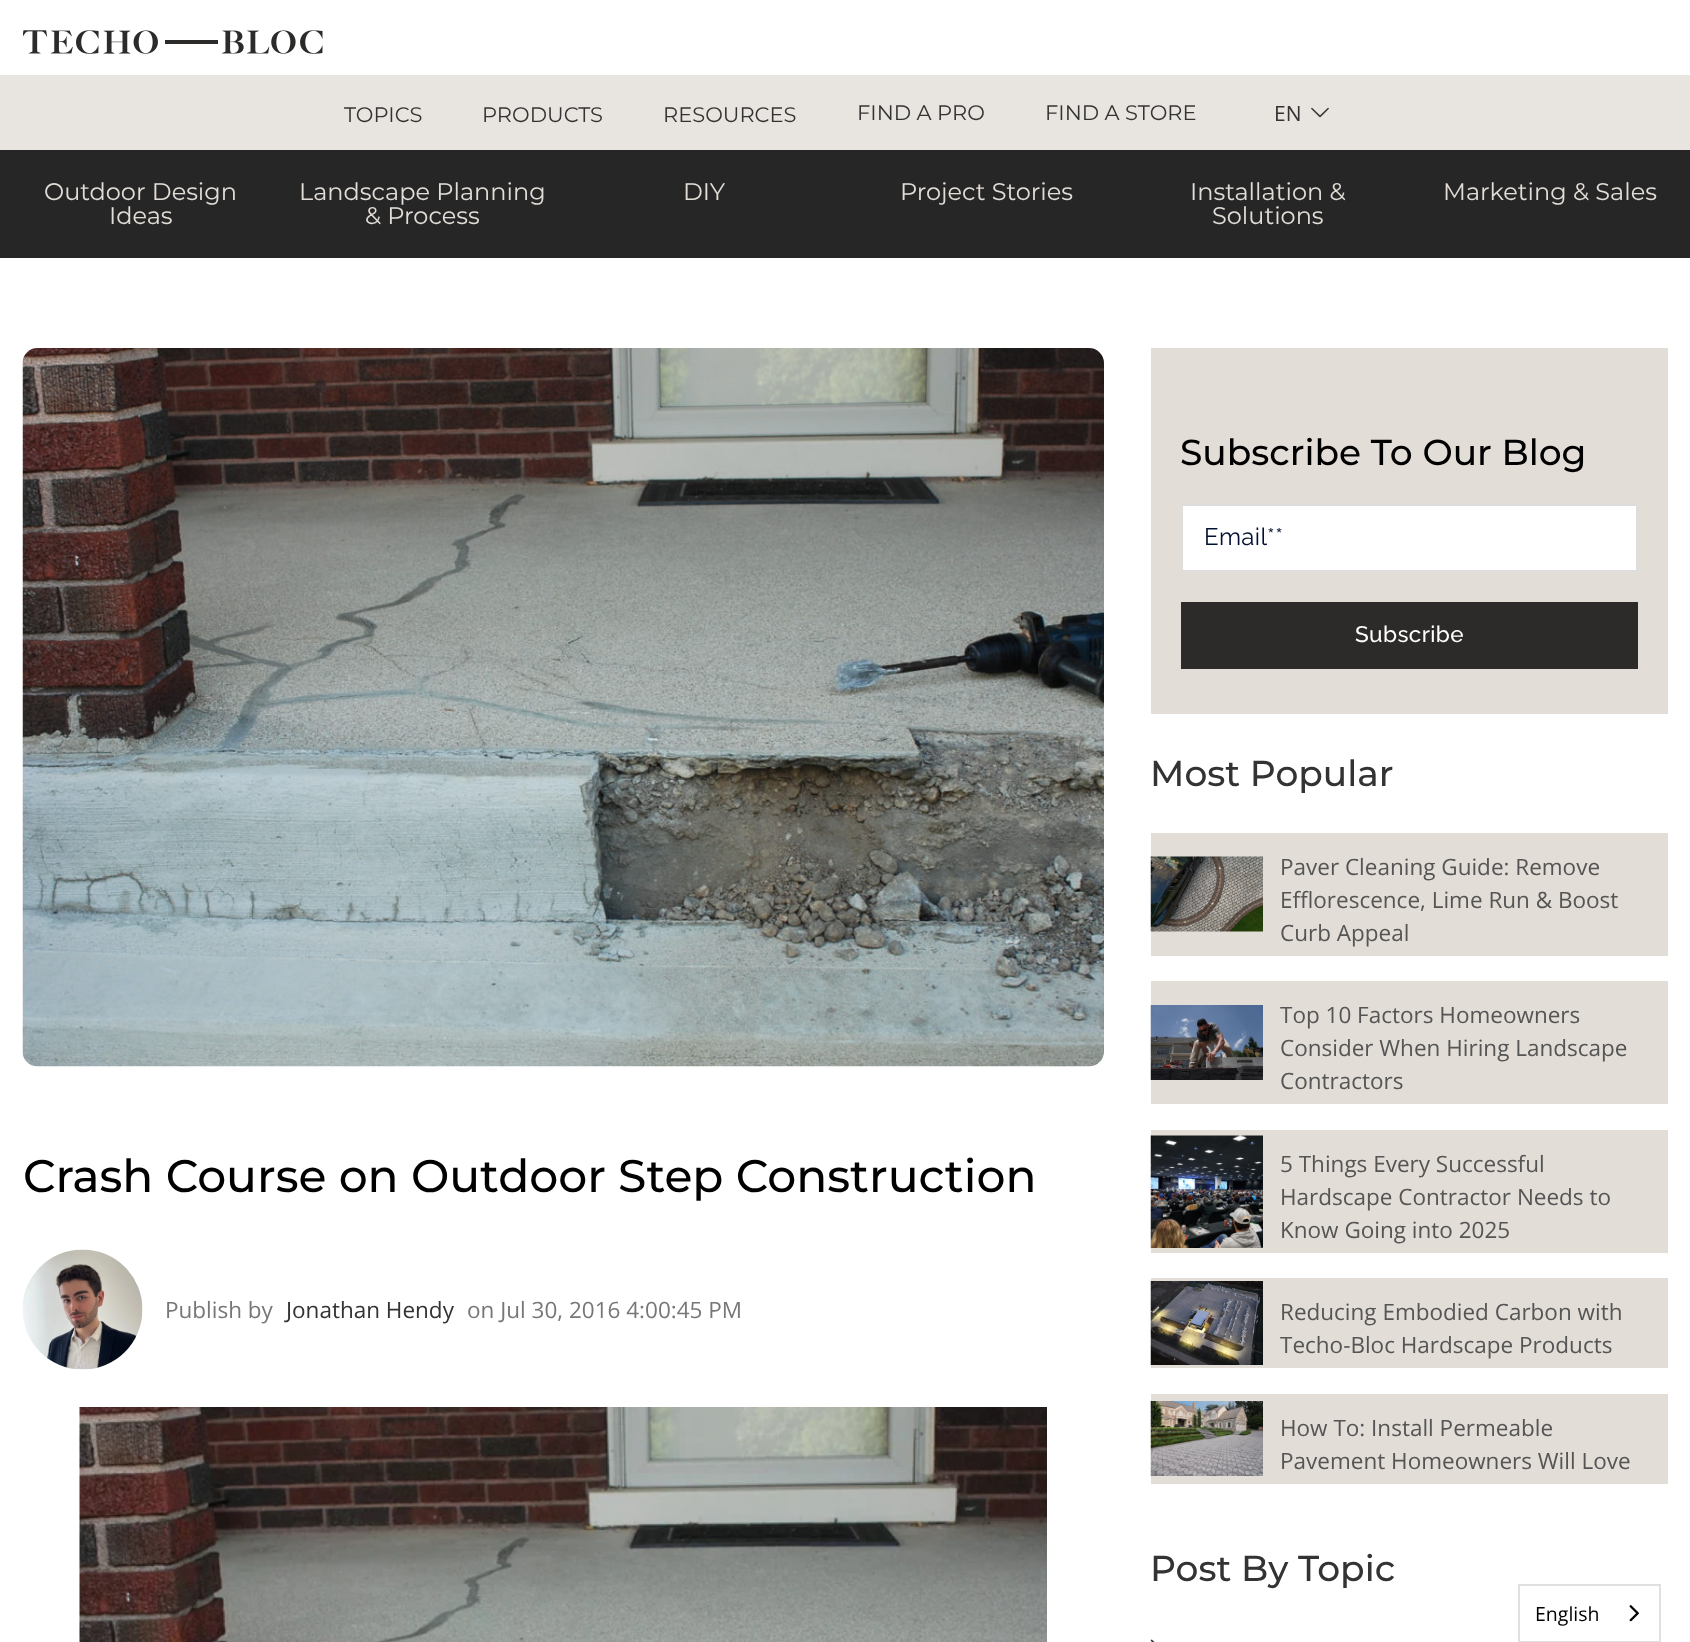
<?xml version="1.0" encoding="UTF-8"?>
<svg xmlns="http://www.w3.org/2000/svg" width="1690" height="1642">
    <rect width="100%" height="100%" fill="#FFFFFF"/>
    <rect x="0" y="150" width="1690" height="108" fill="#262626"/>
    <image x="23" y="30" width="300" height="24" href="img_01.png"/>
    <rect x="0" y="75" width="1690" height="75" fill="#E8E4DF"/>
    <text x="344" y="122" font-family="Montserrat" font-size="21" fill="#333333">TOPICS</text>
    <text x="482" y="122" font-family="Montserrat" font-size="21" fill="#333333">PRODUCTS</text>
    <text x="663" y="122" font-family="Montserrat" font-size="21" fill="#333333">RESOURCES</text>
    <text x="857" y="120" font-family="Montserrat" font-size="21" fill="#333333">FIND A PRO</text>
    <text x="1045" y="120" font-family="Montserrat" font-size="21" fill="#333333">FIND A STORE</text>
    <text x="1274" y="121" font-family="Open Sans" font-size="21" fill="#333333">EN</text>
    <image x="1311" y="107" width="18" height="11" href="img_02.png"/>
    <text x="44" y="200" font-family="Montserrat" font-size="24" fill="#E2DDD7">Outdoor Design</text>
    <text x="109" y="224" font-family="Montserrat" font-size="24" fill="#E2DDD7">Ideas</text>
    <text x="299" y="200" font-family="Montserrat" font-size="24" fill="#E2DDD7">Landscape Planning</text>
    <text x="365" y="224" font-family="Montserrat" font-size="24" fill="#E2DDD7">&amp; Process</text>
    <text x="683" y="200" font-family="Montserrat" font-size="24" fill="#E2DDD7">DIY</text>
    <text x="900" y="200" font-family="Montserrat" font-size="24" fill="#E2DDD7">Project Stories</text>
    <text x="1190" y="200" font-family="Montserrat" font-size="24" fill="#E2DDD7">Installation &amp;</text>
    <text x="1212" y="224" font-family="Montserrat" font-size="24" fill="#E2DDD7">Solutions</text>
    <text x="1443" y="200" font-family="Montserrat" font-size="24" fill="#E2DDD7">Marketing &amp; Sales</text>
    <image x="22" y="348" width="1082" height="719" href="img_03.png"/>
    <text x="23" y="1192" font-family="Montserrat" font-size="45.6" font-weight="500" fill="#000000">Crash Course on Outdoor Step Construction</text>
    <image x="22" y="1249" width="121" height="121" href="img_04.png"/>
    <text x="165" y="1318" font-family="Open Sans" font-size="22.5" fill="#777777">Publish by</text>
    <text x="286" y="1318" font-family="Open Sans" font-size="22.5" fill="#333333">Jonathan Hendy</text>
    <text x="467" y="1318" font-family="Open Sans" font-size="22.5" fill="#777777">on Jul 30, 2016 4:00:45 PM</text>
    <image x="79" y="1407" width="968" height="235" href="img_05.png"/>
    <rect x="1151" y="348" width="517" height="366" fill="#E2DDD7"/>
    <text x="1180" y="465" font-family="Montserrat" font-size="36" font-weight="500" fill="#000000">Subscribe To Our Blog</text>
    <rect x="1182" y="505" width="455" height="66" fill="#FFFFFF" stroke="#DDDDDD" stroke-width="2"/>
    <text x="1204" y="545" font-family="Raleway" font-size="24" letter-spacing="0.4" fill="#011031">Email**</text>
    <rect x="1181" y="602" width="457" height="67" fill="#2C2B2A"/>
    <text x="1355" y="642" font-family="Raleway" font-size="22.5" font-weight="500" letter-spacing="0.4" fill="#FFFFFF">Subscribe</text>
    <text x="1150" y="786" font-family="Montserrat" font-size="36" font-weight="500" fill="#333333">Most Popular</text>
    <rect x="1151" y="833" width="517" height="123" fill="#E2DDD7"/>
    <image x="1150" y="856" width="113" height="76" href="img_06.png"/>
    <text font-family="Open Sans" font-size="22.5" fill="#555555">
        <tspan x="1280" y="875">Paver Cleaning Guide: Remove</tspan>
        <tspan x="1280" y="908">Efflorescence, Lime Run &amp; Boost</tspan>
        <tspan x="1280" y="941">Curb Appeal</tspan>
    </text>
    <rect x="1151" y="981" width="517" height="123" fill="#E2DDD7"/>
    <image x="1150" y="1005" width="113" height="75" href="img_07.png"/>
    <text font-family="Open Sans" font-size="22.5" fill="#555555">
        <tspan x="1280" y="1023">Top 10 Factors Homeowners</tspan>
        <tspan x="1280" y="1056">Consider When Hiring Landscape</tspan>
        <tspan x="1280" y="1089">Contractors</tspan>
    </text>
    <rect x="1151" y="1130" width="517" height="123" fill="#E2DDD7"/>
    <image x="1150" y="1135" width="113" height="113" href="img_08.png"/>
    <text font-family="Open Sans" font-size="22.5" fill="#555555">
        <tspan x="1280" y="1172">5 Things Every Successful</tspan>
        <tspan x="1280" y="1205">Hardscape Contractor Needs to</tspan>
        <tspan x="1280" y="1238">Know Going into 2025</tspan>
    </text>
    <rect x="1151" y="1278" width="517" height="90" fill="#E2DDD7"/>
    <image x="1150" y="1281" width="113" height="84" href="img_09.png"/>
    <text font-family="Open Sans" font-size="22.5" fill="#555555">
        <tspan x="1280" y="1320">Reducing Embodied Carbon with</tspan>
        <tspan x="1280" y="1353">Techo-Bloc Hardscape Products</tspan>
    </text>
    <rect x="1151" y="1394" width="517" height="90" fill="#E2DDD7"/>
    <image x="1150" y="1401" width="113" height="75" href="img_10.png"/>
    <text font-family="Open Sans" font-size="22.5" fill="#555555">
        <tspan x="1280" y="1436">How To: Install Permeable</tspan>
        <tspan x="1280" y="1469">Pavement Homeowners Will Love</tspan>
    </text>
    <text x="1150" y="1581" font-family="Montserrat" font-size="36" font-weight="500" fill="#333333">Post By Topic</text>
    <image x="1150" y="1639" width="5" height="3" href="img_11.png"/>
    <rect x="1519" y="1585" width="141" height="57" fill="none" stroke="#E0E0E0" stroke-width="2"/>
    <text x="1535" y="1621" font-family="Open Sans" font-size="19.5" fill="#000000">English</text>
    <image x="1629" y="1605" width="10" height="17" href="img_12.png"/>
</svg>
